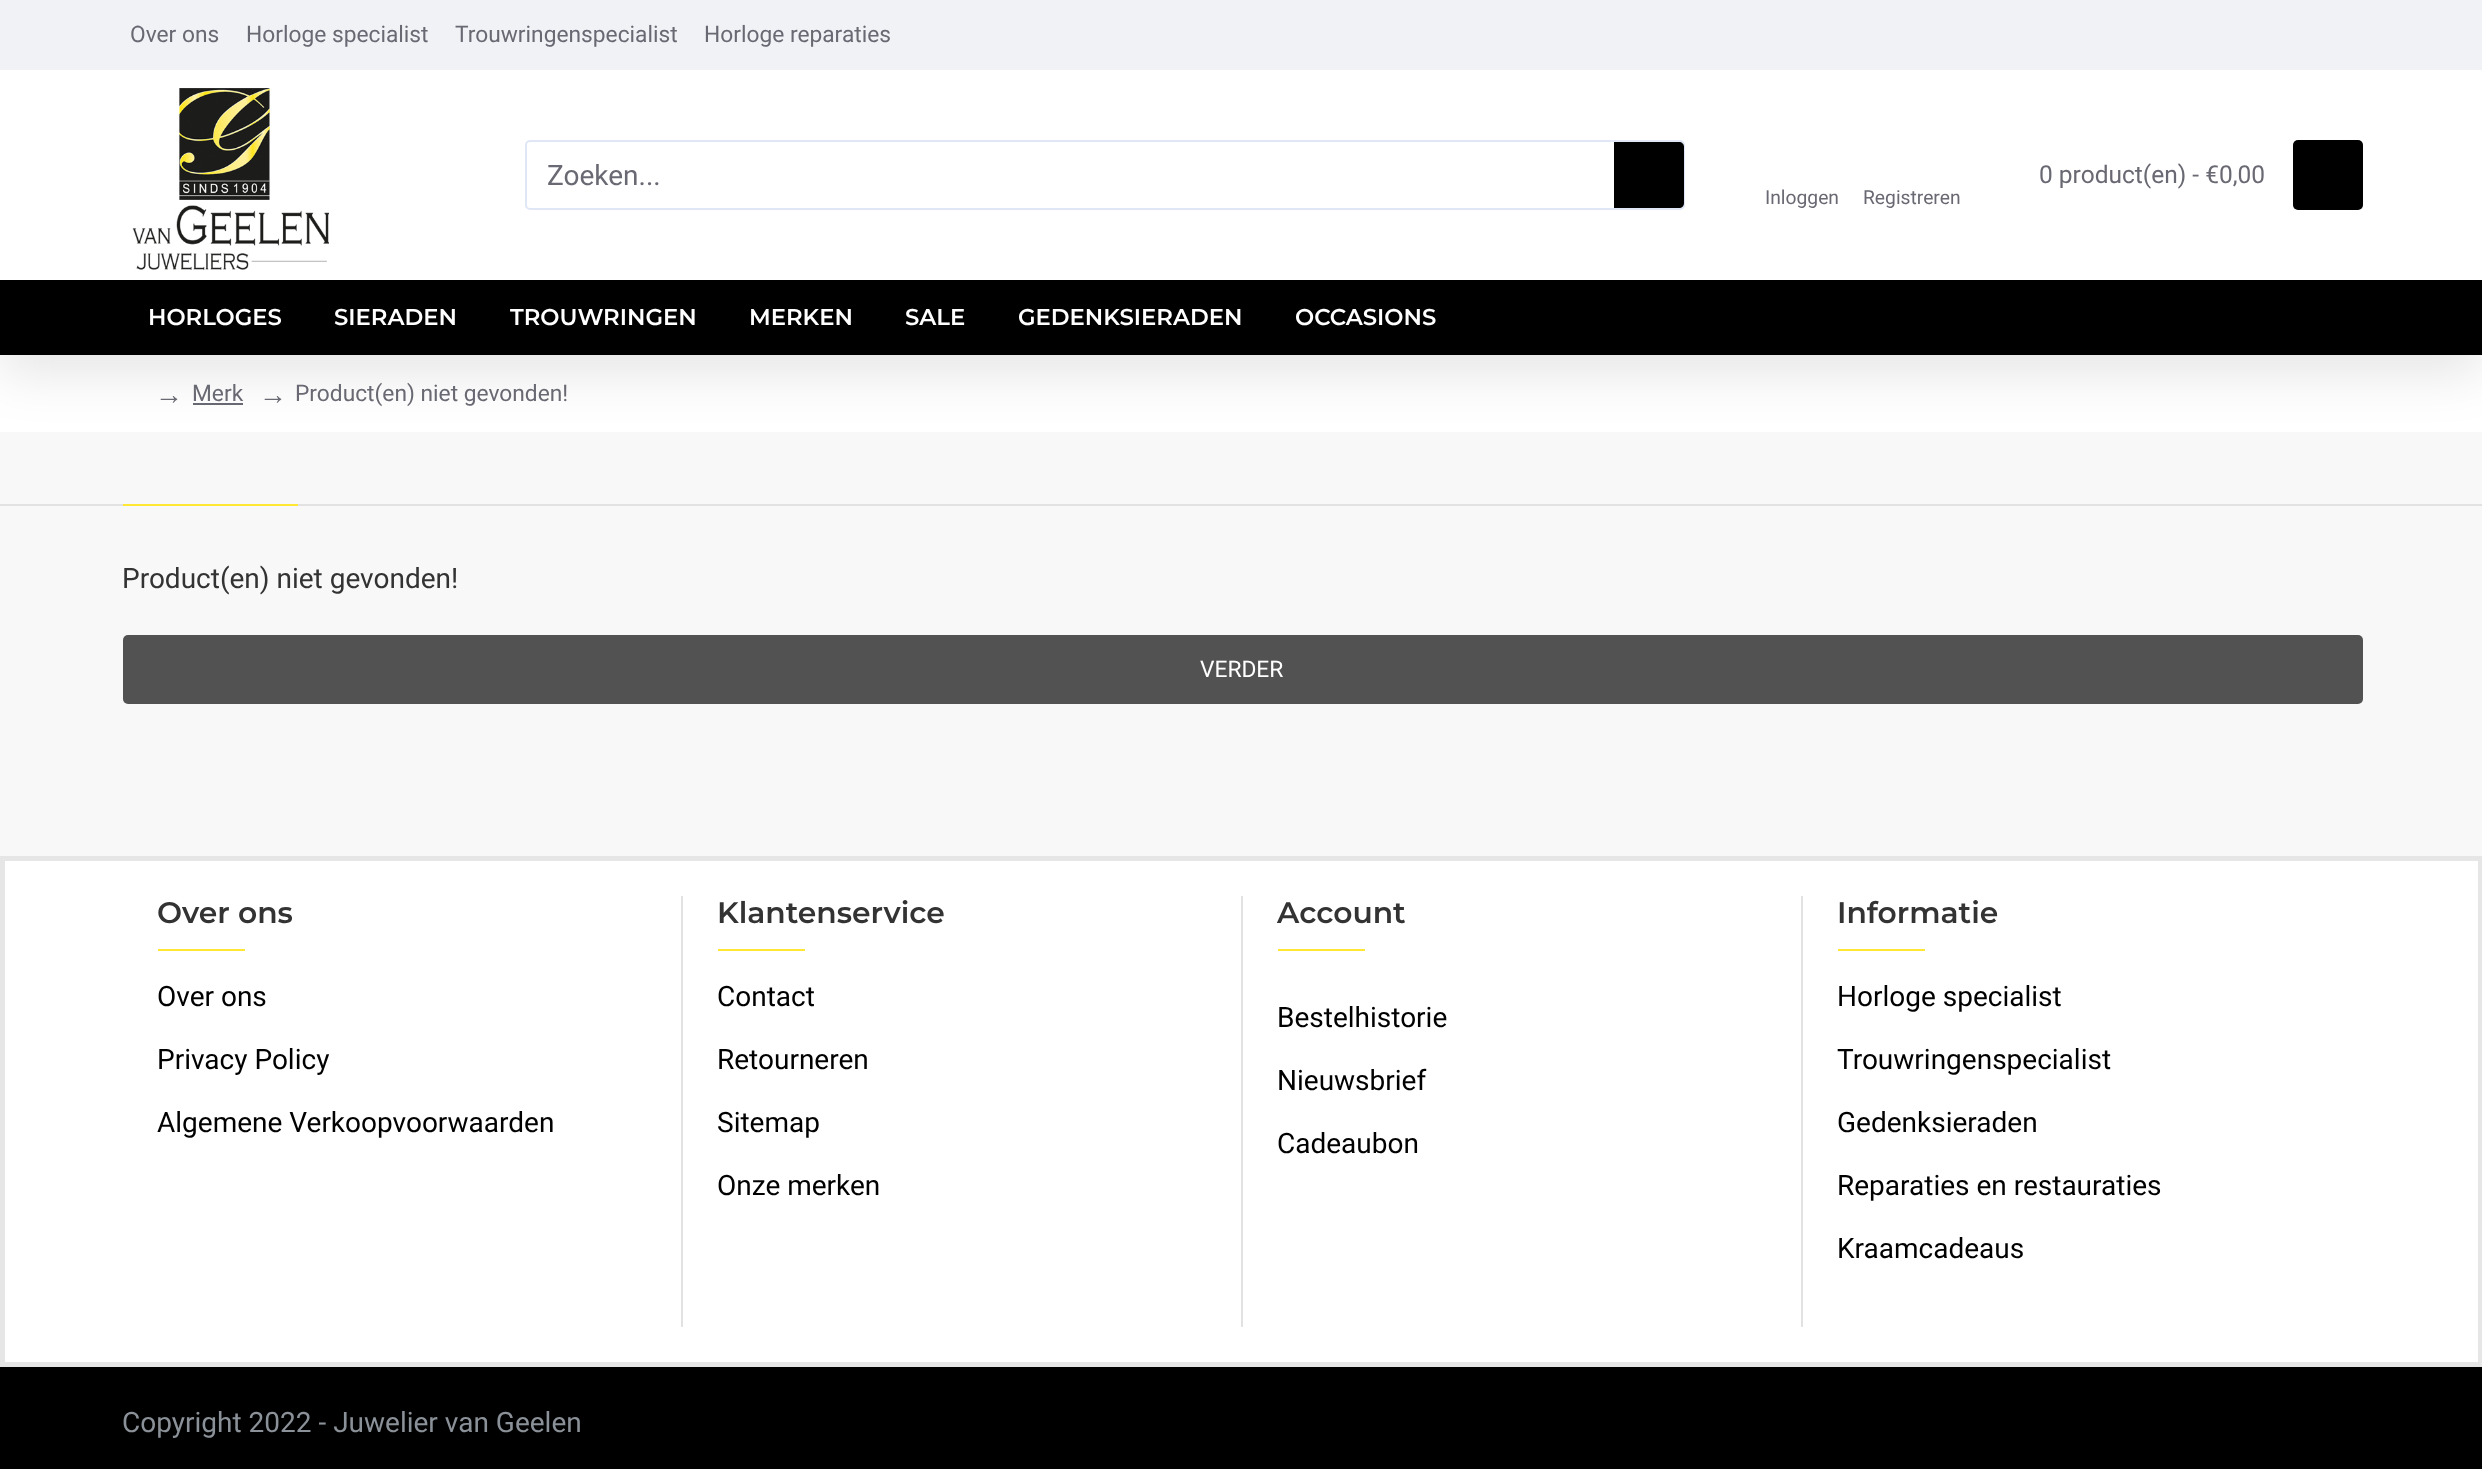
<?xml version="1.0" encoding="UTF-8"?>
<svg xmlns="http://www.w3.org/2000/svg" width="2482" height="1469">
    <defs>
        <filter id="blur1" x="-50%" y="-200%" width="200%" height="500%"><feGaussianBlur stdDeviation="26"/></filter>
    </defs>
    <rect width="100%" height="100%" fill="#F8F8F8"/>
    <rect x="0" y="355" width="2482" height="77" fill="#FFFFFF"/>
    <rect x="193" y="403" width="50" height="2" fill="#696973"/>
    <rect x="0" y="18" width="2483" height="355" fill="#000000" fill-opacity="0.1" filter="url(#blur1)"/>
    <rect x="0" y="70" width="2482" height="210" fill="#FFFFFF"/>
    <rect x="0" y="0" width="2482" height="70" fill="#F0F2F5"/>
    <text x="130" y="42" font-family="Roboto" font-size="22.75" fill="#696973">Over ons</text>
    <text x="246" y="42" font-family="Roboto" font-size="22.75" fill="#696973">Horloge specialist</text>
    <text x="455" y="42" font-family="Roboto" font-size="22.75" fill="#696973">Trouwringenspecialist</text>
    <text x="704" y="42" font-family="Roboto" font-size="22.75" fill="#696973">Horloge reparaties</text>
    <image x="132" y="88" width="197" height="182" href="img_01.png"/>
    <rect x="526" y="141" width="1158" height="68" rx="4" fill="none" stroke="#DFE7F6" stroke-width="2"/>
    <text x="547" y="185" font-family="Roboto" font-size="28" fill="#696973">Zoeken...</text>
    <path d="M 1614 142 H 1679 C 1682 142 1684 144 1684 147 V 203 C 1684 206 1682 208 1679 208 H 1614 Z" fill="#000000"/>
    <text x="2039" y="183" font-family="Roboto" font-size="24.5" fill="#696973">0 product(en) - €0,00</text>
    <rect x="2293" y="140" width="70" height="70" rx="5" fill="#000000"/>
    <text x="1765" y="204" font-family="Roboto" font-size="19.25" fill="#696973">Inloggen</text>
    <text x="1863" y="204" font-family="Roboto" font-size="19.25" fill="#696973">Registreren</text>
    <rect x="0" y="280" width="2482" height="75" fill="#000000"/>
    <text x="148" y="325" font-family="Montserrat" font-size="22.75" font-weight="600" fill="#FFFFFF">HORLOGES</text>
    <text x="334" y="325" font-family="Montserrat" font-size="22.75" font-weight="600" fill="#FFFFFF">SIERADEN</text>
    <text x="510" y="325" font-family="Montserrat" font-size="22.75" font-weight="600" fill="#FFFFFF">TROUWRINGEN</text>
    <text x="749" y="325" font-family="Montserrat" font-size="22.75" font-weight="600" fill="#FFFFFF">MERKEN</text>
    <text x="905" y="325" font-family="Montserrat" font-size="22.75" font-weight="600" fill="#FFFFFF">SALE</text>
    <text x="1018" y="325" font-family="Montserrat" font-size="22.75" font-weight="600" fill="#FFFFFF">GEDENKSIERADEN</text>
    <text x="1295" y="325" font-family="Montserrat" font-size="22.75" font-weight="600" fill="#FFFFFF">OCCASIONS</text>
    <text x="155" y="404" font-family="Liberation Serif" font-size="28" fill="#696973">→</text>
    <text x="192" y="401" font-family="Roboto" font-size="22.75" fill="#696973">Merk</text>
    <text x="259" y="404" font-family="Liberation Serif" font-size="28" fill="#696973">→</text>
    <text x="295" y="401" font-family="Roboto" font-size="22.75" fill="#696973">Product(en) niet gevonden!</text>
    <rect x="0" y="504" width="2482" height="2" fill="#E2E2E2"/>
    <rect x="123" y="504" width="175" height="2" fill="#FFE733"/>
    <text x="122" y="588" font-family="Roboto" font-size="28" fill="#333333">Product(en) niet gevonden!</text>
    <rect x="123" y="635" width="2240" height="69" rx="5" fill="#525252"/>
    <text x="1200" y="677" font-family="Roboto" font-size="22.75" fill="#FFFFFF">VERDER</text>
    <rect x="2.5" y="858.5" width="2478" height="506" fill="#FFFFFF" stroke="#E6E6E6" stroke-width="5"/>
    <rect x="681" y="896" width="2" height="431" fill="#E2E2E2"/>
    <text x="157" y="923" font-family="Montserrat" font-size="29.75" font-weight="600" fill="#333333">Over ons</text>
    <rect x="158" y="949" width="87" height="2" fill="#FFE733"/>
    <text x="157" y="1006" font-family="Roboto" font-size="28" fill="#000000">Over ons</text>
    <text x="157" y="1069" font-family="Roboto" font-size="28" fill="#000000">Privacy Policy</text>
    <text x="157" y="1132" font-family="Roboto" font-size="28" fill="#000000">Algemene Verkoopvoorwaarden</text>
    <rect x="1241" y="896" width="2" height="431" fill="#E2E2E2"/>
    <text x="717" y="923" font-family="Montserrat" font-size="29.75" font-weight="600" fill="#333333">Klantenservice</text>
    <rect x="718" y="949" width="87" height="2" fill="#FFE733"/>
    <text x="717" y="1006" font-family="Roboto" font-size="28" fill="#000000">Contact</text>
    <text x="717" y="1069" font-family="Roboto" font-size="28" fill="#000000">Retourneren</text>
    <text x="717" y="1132" font-family="Roboto" font-size="28" fill="#000000">Sitemap</text>
    <text x="717" y="1195" font-family="Roboto" font-size="28" fill="#000000">Onze merken</text>
    <rect x="1801" y="896" width="2" height="431" fill="#E2E2E2"/>
    <text x="1277" y="923" font-family="Montserrat" font-size="29.75" font-weight="600" fill="#333333">Account</text>
    <rect x="1278" y="949" width="87" height="2" fill="#FFE733"/>
    <text x="1277" y="1027" font-family="Roboto" font-size="28" fill="#000000">Bestelhistorie</text>
    <text x="1277" y="1090" font-family="Roboto" font-size="28" fill="#000000">Nieuwsbrief</text>
    <text x="1277" y="1153" font-family="Roboto" font-size="28" fill="#000000">Cadeaubon</text>
    <text x="1837" y="923" font-family="Montserrat" font-size="29.75" font-weight="600" fill="#333333">Informatie</text>
    <rect x="1838" y="949" width="87" height="2" fill="#FFE733"/>
    <text x="1837" y="1006" font-family="Roboto" font-size="28" fill="#000000">Horloge specialist</text>
    <text x="1837" y="1069" font-family="Roboto" font-size="28" fill="#000000">Trouwringenspecialist</text>
    <text x="1837" y="1132" font-family="Roboto" font-size="28" fill="#000000">Gedenksieraden</text>
    <text x="1837" y="1195" font-family="Roboto" font-size="28" fill="#000000">Reparaties en restauraties</text>
    <text x="1837" y="1258" font-family="Roboto" font-size="28" fill="#000000">Kraamcadeaus</text>
    <rect x="0" y="1367" width="2482" height="102" fill="#000000"/>
    <text x="122" y="1432" font-family="Roboto" font-size="28" fill="#8B9198">Copyright 2022 - Juwelier van Geelen</text>
</svg>
